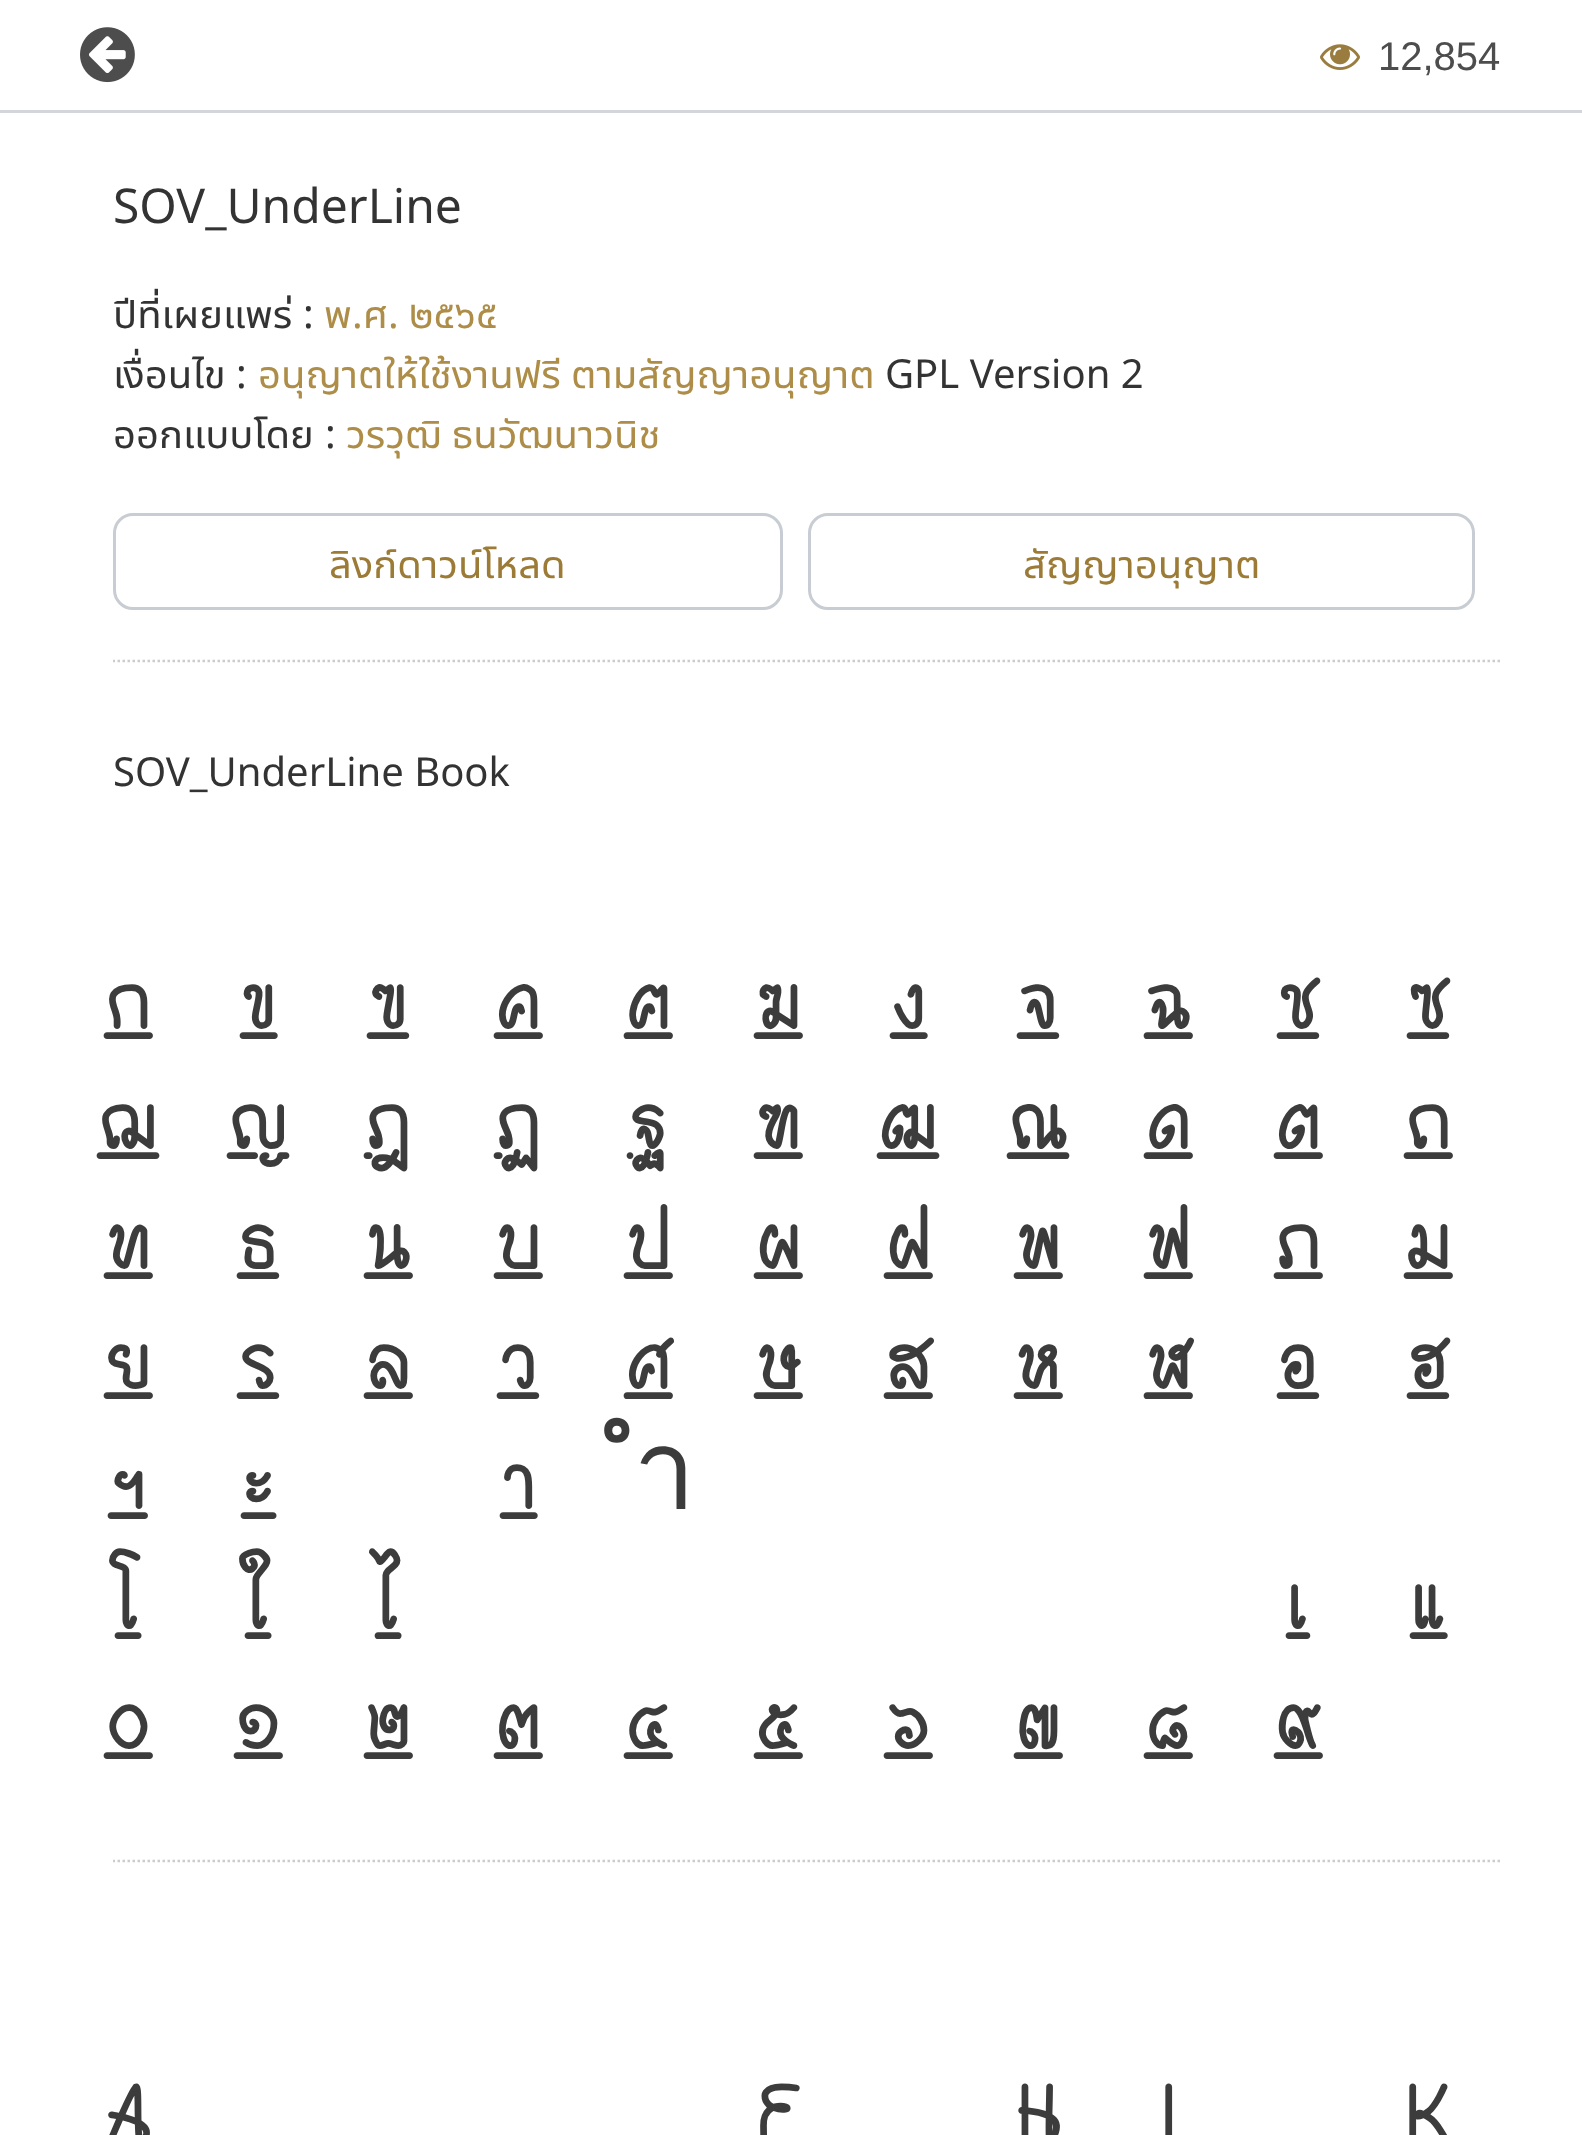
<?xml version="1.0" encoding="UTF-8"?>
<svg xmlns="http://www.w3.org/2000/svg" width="1582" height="2135">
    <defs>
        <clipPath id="clip1"><rect x="113" y="610" width="1387" height="100"/></clipPath>
        <clipPath id="clip2"><rect x="113" y="1810" width="1387" height="100"/></clipPath>
    </defs>
    <rect width="100%" height="100%" fill="#FFFFFF"/>
    <rect x="0" y="110" width="1582" height="3" fill="#D2D6DB"/>
    <image x="80" y="27" width="55" height="56" href="img_01.png"/>
    <image x="1320" y="44" width="40" height="26" href="img_02.png"/>
    <text x="1378" y="70" font-family="Liberation Sans" font-size="40" fill="#4D4D4D">12,854</text>
    <text x="113" y="223" font-family="Noto Sans" font-size="48" fill="#333333">SOV_UnderLine</text>
    <text x="113" y="328" font-family="Noto Sans Thai UI" font-size="40" fill="#333333">ปีที่เผยแพร่</text>
    <text x="303" y="328" font-family="Noto Sans" font-size="40" fill="#333333">:</text>
    <text x="324" y="328" font-family="Noto Sans Thai UI" font-size="40" fill="#AD8D47">พ</text>
    <text x="352" y="328" font-family="Noto Sans" font-size="40" fill="#AD8D47">.</text>
    <text x="363" y="328" font-family="Noto Sans Thai UI" font-size="40" fill="#AD8D47">ศ</text>
    <text x="388" y="328" font-family="Noto Sans" font-size="40" fill="#AD8D47">.</text>
    <text x="409" y="328" font-family="Noto Sans Thai UI" font-size="40" fill="#AD8D47">๒๕๖๕</text>
    <text x="113" y="388" font-family="Noto Sans Thai UI" font-size="40" fill="#333333">เงื่อนไข</text>
    <text x="236" y="388" font-family="Noto Sans" font-size="40" fill="#333333">:</text>
    <text x="258" y="388" font-family="Noto Sans Thai UI" font-size="40" fill="#AD8D47">อนุญาตให้ใช้งานฟรี ตามสัญญาอนุญาต</text>
    <text x="885" y="388" font-family="Noto Sans" font-size="40" fill="#333333">GPL Version 2</text>
    <text x="113" y="448" font-family="Noto Sans Thai UI" font-size="40" fill="#333333">ออกแบบโดย</text>
    <text x="325" y="448" font-family="Noto Sans" font-size="40" fill="#333333">:</text>
    <text x="346" y="448" font-family="Noto Sans Thai UI" font-size="40" fill="#AD8D47">วรวุฒิ ธนวัฒนาวนิช</text>
    <rect x="114.5" y="514.5" width="667" height="94" rx="18.5" fill="none" stroke="#C8CCD3" stroke-width="3"/>
    <text x="329" y="578" font-family="Noto Sans Thai UI" font-size="40" fill="#9C7B37">ลิงก์ดาวน์โหลด</text>
    <rect x="809.5" y="514.5" width="664" height="94" rx="18.5" fill="none" stroke="#C8CCD3" stroke-width="3"/>
    <text x="1023" y="578" font-family="Noto Sans Thai UI" font-size="40" fill="#9C7B37">สัญญาอนุญาต</text>
    <g clip-path="url(#clip1)">
        <path d="M 112.5 661 H 1500" fill="none" stroke="#CCCCCC" stroke-width="2.5" stroke-dasharray="2.5 2.5"/>
    </g>
    <text x="113" y="786" font-family="Noto Sans" font-size="40" fill="#333333">SOV_UnderLine Book</text>
    <text x="107" y="1029" font-family="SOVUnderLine" font-size="112" fill="#3C3C3C">ก</text>
    <text x="243" y="1029" font-family="SOVUnderLine" font-size="112" fill="#3C3C3C">ข</text>
    <text x="370" y="1029" font-family="SOVUnderLine" font-size="112" fill="#3C3C3C">ฃ</text>
    <text x="497" y="1029" font-family="SOVUnderLine" font-size="112" fill="#3C3C3C">ค</text>
    <text x="627" y="1029" font-family="SOVUnderLine" font-size="112" fill="#3C3C3C">ฅ</text>
    <text x="757" y="1029" font-family="SOVUnderLine" font-size="112" fill="#3C3C3C">ฆ</text>
    <text x="893" y="1029" font-family="SOVUnderLine" font-size="112" fill="#3C3C3C">ง</text>
    <text x="1020" y="1029" font-family="SOVUnderLine" font-size="112" fill="#3C3C3C">จ</text>
    <text x="1147" y="1029" font-family="SOVUnderLine" font-size="112" fill="#3C3C3C">ฉ</text>
    <text x="1280" y="1029" font-family="SOVUnderLine" font-size="112" fill="#3C3C3C">ช</text>
    <text x="1410" y="1029" font-family="SOVUnderLine" font-size="112" fill="#3C3C3C">ซ</text>
    <text x="100" y="1149" font-family="SOVUnderLine" font-size="112" fill="#3C3C3C">ฌ</text>
    <text x="230" y="1149" font-family="SOVUnderLine" font-size="112" fill="#3C3C3C">ญ</text>
    <text x="367" y="1149" font-family="SOVUnderLine" font-size="112" fill="#3C3C3C">ฎ</text>
    <text x="497" y="1149" font-family="SOVUnderLine" font-size="112" fill="#3C3C3C">ฏ</text>
    <text x="630" y="1149" font-family="SOVUnderLine" font-size="112" fill="#3C3C3C">ฐ</text>
    <text x="757" y="1149" font-family="SOVUnderLine" font-size="112" fill="#3C3C3C">ฑ</text>
    <text x="880" y="1149" font-family="SOVUnderLine" font-size="112" fill="#3C3C3C">ฒ</text>
    <text x="1010" y="1149" font-family="SOVUnderLine" font-size="112" fill="#3C3C3C">ณ</text>
    <text x="1147" y="1149" font-family="SOVUnderLine" font-size="112" fill="#3C3C3C">ด</text>
    <text x="1277" y="1149" font-family="SOVUnderLine" font-size="112" fill="#3C3C3C">ต</text>
    <text x="1407" y="1149" font-family="SOVUnderLine" font-size="112" fill="#3C3C3C">ถ</text>
    <text x="107" y="1269" font-family="SOVUnderLine" font-size="112" fill="#3C3C3C">ท</text>
    <text x="240" y="1269" font-family="SOVUnderLine" font-size="112" fill="#3C3C3C">ธ</text>
    <text x="367" y="1269" font-family="SOVUnderLine" font-size="112" fill="#3C3C3C">น</text>
    <text x="497" y="1269" font-family="SOVUnderLine" font-size="112" fill="#3C3C3C">บ</text>
    <text x="627" y="1269" font-family="SOVUnderLine" font-size="112" fill="#3C3C3C">ป</text>
    <text x="757" y="1269" font-family="SOVUnderLine" font-size="112" fill="#3C3C3C">ผ</text>
    <text x="887" y="1269" font-family="SOVUnderLine" font-size="112" fill="#3C3C3C">ฝ</text>
    <text x="1017" y="1269" font-family="SOVUnderLine" font-size="112" fill="#3C3C3C">พ</text>
    <text x="1147" y="1269" font-family="SOVUnderLine" font-size="112" fill="#3C3C3C">ฟ</text>
    <text x="1277" y="1269" font-family="SOVUnderLine" font-size="112" fill="#3C3C3C">ภ</text>
    <text x="1407" y="1269" font-family="SOVUnderLine" font-size="112" fill="#3C3C3C">ม</text>
    <text x="107" y="1389" font-family="SOVUnderLine" font-size="112" fill="#3C3C3C">ย</text>
    <text x="240" y="1389" font-family="SOVUnderLine" font-size="112" fill="#3C3C3C">ร</text>
    <text x="367" y="1389" font-family="SOVUnderLine" font-size="112" fill="#3C3C3C">ล</text>
    <text x="500" y="1389" font-family="SOVUnderLine" font-size="112" fill="#3C3C3C">ว</text>
    <text x="627" y="1389" font-family="SOVUnderLine" font-size="112" fill="#3C3C3C">ศ</text>
    <text x="757" y="1389" font-family="SOVUnderLine" font-size="112" fill="#3C3C3C">ษ</text>
    <text x="887" y="1389" font-family="SOVUnderLine" font-size="112" fill="#3C3C3C">ส</text>
    <text x="1017" y="1389" font-family="SOVUnderLine" font-size="112" fill="#3C3C3C">ห</text>
    <text x="1147" y="1389" font-family="SOVUnderLine" font-size="112" fill="#3C3C3C">ฬ</text>
    <text x="1280" y="1389" font-family="SOVUnderLine" font-size="112" fill="#3C3C3C">อ</text>
    <text x="1410" y="1389" font-family="SOVUnderLine" font-size="112" fill="#3C3C3C">ฮ</text>
    <text x="111" y="1509" font-family="SOVUnderLine" font-size="112" fill="#3C3C3C">ฯ</text>
    <text x="244" y="1509" font-family="SOVUnderLine" font-size="112" fill="#3C3C3C">ะ</text>
    <text x="503" y="1509" font-family="SOVUnderLine" font-size="112" fill="#3C3C3C">า</text>
    <text x="633" y="1509" font-family="SOVUnderLine" font-size="112" fill="#3C3C3C">ำ</text>
    <text x="118" y="1629" font-family="SOVUnderLine" font-size="112" fill="#3C3C3C">โ</text>
    <text x="248" y="1629" font-family="SOVUnderLine" font-size="112" fill="#3C3C3C">ใ</text>
    <text x="378" y="1629" font-family="SOVUnderLine" font-size="112" fill="#3C3C3C">ไ</text>
    <text x="1289" y="1629" font-family="SOVUnderLine" font-size="112" fill="#3C3C3C">เ</text>
    <text x="1413" y="1629" font-family="SOVUnderLine" font-size="112" fill="#3C3C3C">แ</text>
    <text x="107" y="1749" font-family="SOVUnderLine" font-size="112" fill="#3C3C3C">๐</text>
    <text x="237" y="1749" font-family="SOVUnderLine" font-size="112" fill="#3C3C3C">๑</text>
    <text x="367" y="1749" font-family="SOVUnderLine" font-size="112" fill="#3C3C3C">๒</text>
    <text x="497" y="1749" font-family="SOVUnderLine" font-size="112" fill="#3C3C3C">๓</text>
    <text x="627" y="1749" font-family="SOVUnderLine" font-size="112" fill="#3C3C3C">๔</text>
    <text x="757" y="1749" font-family="SOVUnderLine" font-size="112" fill="#3C3C3C">๕</text>
    <text x="887" y="1749" font-family="SOVUnderLine" font-size="112" fill="#3C3C3C">๖</text>
    <text x="1017" y="1749" font-family="SOVUnderLine" font-size="112" fill="#3C3C3C">๗</text>
    <text x="1147" y="1749" font-family="SOVUnderLine" font-size="112" fill="#3C3C3C">๘</text>
    <text x="1277" y="1749" font-family="SOVUnderLine" font-size="112" fill="#3C3C3C">๙</text>
    <g clip-path="url(#clip2)">
        <path d="M 112.5 1861 H 1500" fill="none" stroke="#CCCCCC" stroke-width="2.5" stroke-dasharray="2.5 2.5"/>
    </g>
    <text x="106" y="2144" font-family="SOVUnderLine" font-size="112" fill="#3C3C3C">A</text>
    <text x="757" y="2144" font-family="SOVUnderLine" font-size="112" fill="#3C3C3C">F</text>
    <text x="1016" y="2144" font-family="SOVUnderLine" font-size="112" fill="#3C3C3C">H</text>
    <text x="1162" y="2144" font-family="SOVUnderLine" font-size="112" fill="#3C3C3C">I</text>
    <text x="1406" y="2144" font-family="SOVUnderLine" font-size="112" fill="#3C3C3C">K</text>
</svg>
